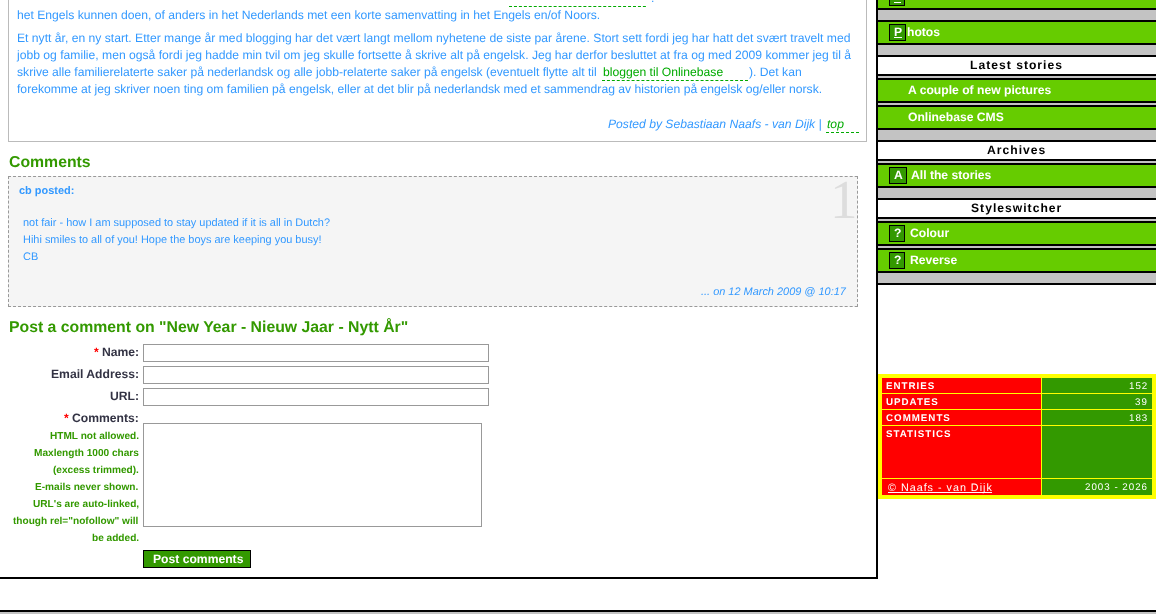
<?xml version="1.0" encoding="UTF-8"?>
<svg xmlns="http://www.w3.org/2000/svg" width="1156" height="614">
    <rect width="100%" height="100%" fill="#C3C3C3"/>
    <rect x="0" y="0" width="876" height="285" fill="#FFFFFF"/>
    <rect x="0" y="285" width="1156" height="325" fill="#FFFFFF"/>
    <rect x="876" y="0" width="2" height="579" fill="#000000"/>
    <rect x="0" y="577" width="878" height="2" fill="#000000"/>
    <rect x="8.5" y="-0.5" width="858" height="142" fill="none" stroke="#BBBBBB"/>
    <text x="651" y="2" font-family="Liberation Sans" font-size="12.15" fill="#3399FF">.</text>
    <path d="M 509 6.5 H 646" fill="none" stroke="#00AA00" stroke-dasharray="3 1.96"/>
    <text font-family="Liberation Sans" font-size="12.15" fill="#3399FF">
        <tspan x="17" y="19">het Engels kunnen doen, of anders in het Nederlands met een korte samenvatting in het Engels en/of Noors.</tspan>
        <tspan x="17" y="42">Et nytt år, en ny start. Etter mange år med blogging har det vært langt mellom nyhetene de siste par årene. Stort sett fordi jeg har hatt det svært travelt med</tspan>
        <tspan x="17" y="59">jobb og familie, men også fordi jeg hadde min tvil om jeg skulle fortsette å skrive alt på engelsk. Jeg har derfor besluttet at fra og med 2009 kommer jeg til å</tspan>
        <tspan x="17" y="76">skrive alle familierelaterte saker på nederlandsk og alle jobb-relaterte saker på engelsk (eventuelt flytte alt til</tspan>
    </text>
    <text x="603" y="76" font-family="Liberation Sans" font-size="12.15" fill="#00AA00">bloggen til Onlinebase</text>
    <path d="M 602 80.5 H 748" fill="none" stroke="#00AA00" stroke-dasharray="3 1.93"/>
    <text x="749" y="76" font-family="Liberation Sans" font-size="12.15" fill="#3399FF">). Det kan</text>
    <text x="17" y="93" font-family="Liberation Sans" font-size="12.15" fill="#3399FF">forekomme at jeg skriver noen ting om familien på engelsk, eller at det blir på nederlandsk med et sammendrag av historien på engelsk og/eller norsk.</text>
    <text x="608" y="128" font-family="Liberation Sans" font-size="12.15" font-style="italic" fill="#3399FF">Posted by Sebastiaan Naafs - van Dijk |</text>
    <text x="827" y="128" font-family="Liberation Sans" font-size="12.15" font-style="italic" fill="#00AA00">top</text>
    <path d="M 826 132.5 H 859" fill="none" stroke="#00AA00" stroke-dasharray="3 2"/>
    <text x="9" y="167" font-family="Liberation Sans" font-size="15.8" font-weight="700" fill="#339900">Comments</text>
    <rect x="8" y="176" width="850" height="131" fill="#F5F5F5"/>
    <path d="M 8 176.5 H 858" fill="none" stroke="#999999" stroke-dasharray="3 2.01"/>
    <path d="M 857.5 176 V 307" fill="none" stroke="#999999" stroke-dasharray="3 1.92"/>
    <path d="M 8 306.5 H 858" fill="none" stroke="#999999" stroke-dasharray="3 2.01"/>
    <path d="M 8.5 176 V 307" fill="none" stroke="#999999" stroke-dasharray="3 1.92"/>
    <text x="19" y="194" font-family="Liberation Sans" font-size="10.95" font-weight="700" fill="#3399FF">cb posted:</text>
    <text x="830" y="218" font-family="Liberation Serif" font-size="55" fill="#DDDDDD">1</text>
    <text font-family="Liberation Sans" font-size="10.95" fill="#3399FF">
        <tspan x="23" y="226">not fair - how I am supposed to stay updated if it is all in Dutch?</tspan>
        <tspan x="23" y="243">Hihi smiles to all of you! Hope the boys are keeping you busy!</tspan>
        <tspan x="23" y="260">CB</tspan>
    </text>
    <text x="701" y="295" font-family="Liberation Sans" font-size="10.95" font-style="italic" fill="#3399FF">... on 12 March 2009 @ 10:17</text>
    <text x="9" y="332" font-family="Liberation Sans" font-size="15.8" font-weight="700" fill="#339900">Post a comment on "New Year - Nieuw Jaar - Nytt År"</text>
    <text x="94" y="356" font-family="Liberation Sans" font-size="12.15" font-weight="700" fill="#FF0000">*</text>
    <text x="102" y="356" font-family="Liberation Sans" font-size="12.15" font-weight="700" fill="#333344">Name:</text>
    <rect x="143.5" y="344.5" width="345" height="17" fill="none" stroke="#999999"/>
    <text x="51" y="378" font-family="Liberation Sans" font-size="12.15" font-weight="700" fill="#333344">Email Address:</text>
    <rect x="143.5" y="366.5" width="345" height="17" fill="none" stroke="#999999"/>
    <text x="110" y="400" font-family="Liberation Sans" font-size="12.15" font-weight="700" fill="#333344">URL:</text>
    <rect x="143.5" y="388.5" width="345" height="17" fill="none" stroke="#999999"/>
    <text x="64" y="422" font-family="Liberation Sans" font-size="12.15" font-weight="700" fill="#FF0000">*</text>
    <text x="72" y="422" font-family="Liberation Sans" font-size="12.15" font-weight="700" fill="#333344">Comments:</text>
    <text x="50" y="439" font-family="Liberation Sans" font-size="10.1" font-weight="700" fill="#339900">HTML not allowed.</text>
    <text x="34" y="456" font-family="Liberation Sans" font-size="10.1" font-weight="700" fill="#339900">Maxlength 1000 chars</text>
    <text x="53" y="473" font-family="Liberation Sans" font-size="10.1" font-weight="700" fill="#339900">(excess trimmed).</text>
    <text x="35" y="490" font-family="Liberation Sans" font-size="10.1" font-weight="700" fill="#339900">E-mails never shown.</text>
    <text x="33" y="507" font-family="Liberation Sans" font-size="10.1" font-weight="700" fill="#339900">URL's are auto-linked,</text>
    <text x="13" y="524" font-family="Liberation Sans" font-size="10.1" font-weight="700" fill="#339900">though rel="nofollow" will</text>
    <text x="92" y="541" font-family="Liberation Sans" font-size="10.1" font-weight="700" fill="#339900">be added.</text>
    <rect x="143.5" y="423.5" width="338" height="103" fill="none" stroke="#999999"/>
    <rect x="143.5" y="550.5" width="107" height="17" fill="#339900" stroke="#000000"/>
    <text x="153" y="563" font-family="Liberation Sans" font-size="12.15" font-weight="700" fill="#FFFFFF">Post comments</text>
    <rect x="878" y="0" width="278" height="8" fill="#66CC00"/>
    <rect x="878" y="8" width="278" height="2" fill="#000000"/>
    <rect x="890" y="0" width="4" height="6" fill="#339900"/>
    <rect x="889" y="5" width="12" height="1" fill="#000000"/>
    <rect x="889" y="0" width="1" height="6" fill="#000000"/>
    <rect x="894" y="0" width="7" height="5" fill="#339900"/>
    <rect x="901" y="0" width="3" height="6" fill="#339900"/>
    <rect x="904" y="0" width="1" height="6" fill="#000000"/>
    <rect x="894" y="2" width="7" height="1" fill="#FFFFFF"/>
    <rect x="901" y="5" width="4" height="1" fill="#000000"/>
    <rect x="878" y="22" width="278" height="21" fill="#66CC00"/>
    <rect x="878" y="20" width="278" height="2" fill="#000000"/>
    <rect x="878" y="43" width="278" height="2" fill="#000000"/>
    <rect x="890" y="24" width="15" height="17" fill="#339900"/>
    <text x="894" y="36" font-family="Liberation Sans" font-size="12.15" font-weight="700" fill="#FFFFFF">P</text>
    <rect x="889" y="24" width="17" height="1" fill="#000000"/>
    <rect x="889" y="40" width="13" height="1" fill="#000000"/>
    <rect x="889" y="24" width="1" height="17" fill="#000000"/>
    <rect x="905" y="24" width="1" height="17" fill="#000000"/>
    <rect x="902" y="40" width="4" height="1" fill="#000000"/>
    <rect x="894" y="37" width="8" height="1" fill="#FFFFFF"/>
    <text x="907" y="36" font-family="Liberation Sans" font-size="12.15" font-weight="700" fill="#FFFFFF">hotos</text>
    <rect x="878" y="57" width="278" height="17" fill="#FFFFFF"/>
    <rect x="878" y="55" width="278" height="2" fill="#000000"/>
    <rect x="878" y="74" width="278" height="2" fill="#000000"/>
    <text x="970" y="69" font-family="Liberation Sans" font-size="12.15" font-weight="700" letter-spacing="1" fill="#000000">Latest stories</text>
    <rect x="878" y="80" width="278" height="21" fill="#66CC00"/>
    <rect x="878" y="78" width="278" height="2" fill="#000000"/>
    <rect x="878" y="101" width="278" height="2" fill="#000000"/>
    <text x="908" y="94" font-family="Liberation Sans" font-size="12.15" font-weight="700" fill="#FFFFFF">A couple of new pictures</text>
    <rect x="878" y="107" width="278" height="21" fill="#66CC00"/>
    <rect x="878" y="105" width="278" height="2" fill="#000000"/>
    <rect x="878" y="128" width="278" height="2" fill="#000000"/>
    <text x="908" y="121" font-family="Liberation Sans" font-size="12.15" font-weight="700" fill="#FFFFFF">Onlinebase CMS</text>
    <rect x="878" y="142" width="278" height="17" fill="#FFFFFF"/>
    <rect x="878" y="140" width="278" height="2" fill="#000000"/>
    <rect x="878" y="159" width="278" height="2" fill="#000000"/>
    <text x="987" y="154" font-family="Liberation Sans" font-size="12.15" font-weight="700" letter-spacing="1" fill="#000000">Archives</text>
    <rect x="878" y="165" width="278" height="21" fill="#66CC00"/>
    <rect x="878" y="163" width="278" height="2" fill="#000000"/>
    <rect x="878" y="186" width="278" height="2" fill="#000000"/>
    <rect x="889.5" y="167.5" width="17" height="16" fill="#339900" stroke="#000000"/>
    <text x="894" y="179" font-family="Liberation Sans" font-size="12.15" font-weight="700" fill="#FFFFFF">A</text>
    <text x="911" y="179" font-family="Liberation Sans" font-size="12.15" font-weight="700" fill="#FFFFFF">All the stories</text>
    <rect x="878" y="200" width="278" height="17" fill="#FFFFFF"/>
    <rect x="878" y="198" width="278" height="2" fill="#000000"/>
    <rect x="878" y="217" width="278" height="2" fill="#000000"/>
    <text x="971" y="212" font-family="Liberation Sans" font-size="12.15" font-weight="700" letter-spacing="1" fill="#000000">Styleswitcher</text>
    <rect x="878" y="223" width="278" height="21" fill="#66CC00"/>
    <rect x="878" y="221" width="278" height="2" fill="#000000"/>
    <rect x="878" y="244" width="278" height="2" fill="#000000"/>
    <rect x="889.5" y="225.5" width="15" height="16" fill="#339900" stroke="#000000"/>
    <text x="894" y="237" font-family="Liberation Sans" font-size="12.15" font-weight="700" fill="#FFFFFF">?</text>
    <text x="910" y="237" font-family="Liberation Sans" font-size="12.15" font-weight="700" fill="#FFFFFF">Colour</text>
    <rect x="878" y="250" width="278" height="21" fill="#66CC00"/>
    <rect x="878" y="248" width="278" height="2" fill="#000000"/>
    <rect x="878" y="271" width="278" height="2" fill="#000000"/>
    <rect x="889.5" y="252.5" width="15" height="16" fill="#339900" stroke="#000000"/>
    <text x="894" y="264" font-family="Liberation Sans" font-size="12.15" font-weight="700" fill="#FFFFFF">?</text>
    <text x="910" y="264" font-family="Liberation Sans" font-size="12.15" font-weight="700" fill="#FFFFFF">Reverse</text>
    <rect x="878" y="283" width="278" height="2" fill="#000000"/>
    <rect x="0" y="610" width="1156" height="2" fill="#000000"/>
    <rect x="1041" y="393" width="114" height="1" fill="#FFFF00"/>
    <rect x="1041" y="409" width="114" height="1" fill="#FFFF00"/>
    <rect x="1041" y="425" width="114" height="1" fill="#FFFF00"/>
    <rect x="1041" y="478" width="114" height="1" fill="#FFFF00"/>
    <rect x="1041" y="478" width="1" height="20" fill="#FFFF00"/>
    <rect x="880" y="478" width="162" height="1" fill="#FFFF00"/>
    <rect x="1041" y="425" width="1" height="54" fill="#FFFF00"/>
    <rect x="880" y="425" width="162" height="1" fill="#FFFF00"/>
    <rect x="1041" y="409" width="1" height="17" fill="#FFFF00"/>
    <rect x="880" y="409" width="162" height="1" fill="#FFFF00"/>
    <rect x="1041" y="393" width="1" height="17" fill="#FFFF00"/>
    <rect x="880" y="393" width="162" height="1" fill="#FFFF00"/>
    <rect x="1041" y="376" width="1" height="18" fill="#FFFF00"/>
    <rect x="878" y="374" width="278" height="4" fill="#FFFF00"/>
    <rect x="1152" y="374" width="4" height="125" fill="#FFFF00"/>
    <rect x="878" y="495" width="278" height="4" fill="#FFFF00"/>
    <rect x="878" y="374" width="4" height="125" fill="#FFFF00"/>
    <rect x="882" y="378" width="159" height="15" fill="#FF0000"/>
    <text x="886" y="389" font-family="Liberation Sans" font-size="9.75" font-weight="700" letter-spacing="1" fill="#FFFFFF">ENTRIES</text>
    <rect x="1042" y="378" width="110" height="15" fill="#339900"/>
    <text x="1129" y="389" font-family="Liberation Sans" font-size="9.75" letter-spacing="1" fill="#FFFFFF">152</text>
    <rect x="882" y="394" width="159" height="15" fill="#FF0000"/>
    <text x="886" y="405" font-family="Liberation Sans" font-size="9.75" font-weight="700" letter-spacing="1" fill="#FFFFFF">UPDATES</text>
    <rect x="1042" y="394" width="110" height="15" fill="#339900"/>
    <text x="1135" y="405" font-family="Liberation Sans" font-size="9.75" letter-spacing="1" fill="#FFFFFF">39</text>
    <rect x="882" y="410" width="159" height="15" fill="#FF0000"/>
    <text x="886" y="421" font-family="Liberation Sans" font-size="9.75" font-weight="700" letter-spacing="1" fill="#FFFFFF">COMMENTS</text>
    <rect x="1042" y="410" width="110" height="15" fill="#339900"/>
    <text x="1129" y="421" font-family="Liberation Sans" font-size="9.75" letter-spacing="1" fill="#FFFFFF">183</text>
    <rect x="882" y="426" width="159" height="52" fill="#FF0000"/>
    <text x="886" y="437" font-family="Liberation Sans" font-size="9.75" font-weight="700" letter-spacing="1" fill="#FFFFFF">STATISTICS</text>
    <rect x="1042" y="426" width="110" height="52" fill="#339900"/>
    <rect x="882" y="479" width="159" height="16" fill="#FF0000"/>
    <rect x="888" y="492" width="104" height="1" fill="#FFFFFF"/>
    <text x="888" y="491" font-family="Liberation Sans" font-size="10.75" letter-spacing="1" fill="#FFFFFF">© Naafs - van Dijk</text>
    <rect x="1042" y="479" width="110" height="16" fill="#339900"/>
    <text x="1085" y="490" font-family="Liberation Sans" font-size="9.75" letter-spacing="1" fill="#FFFFFF">2003 - 2026</text>
</svg>
